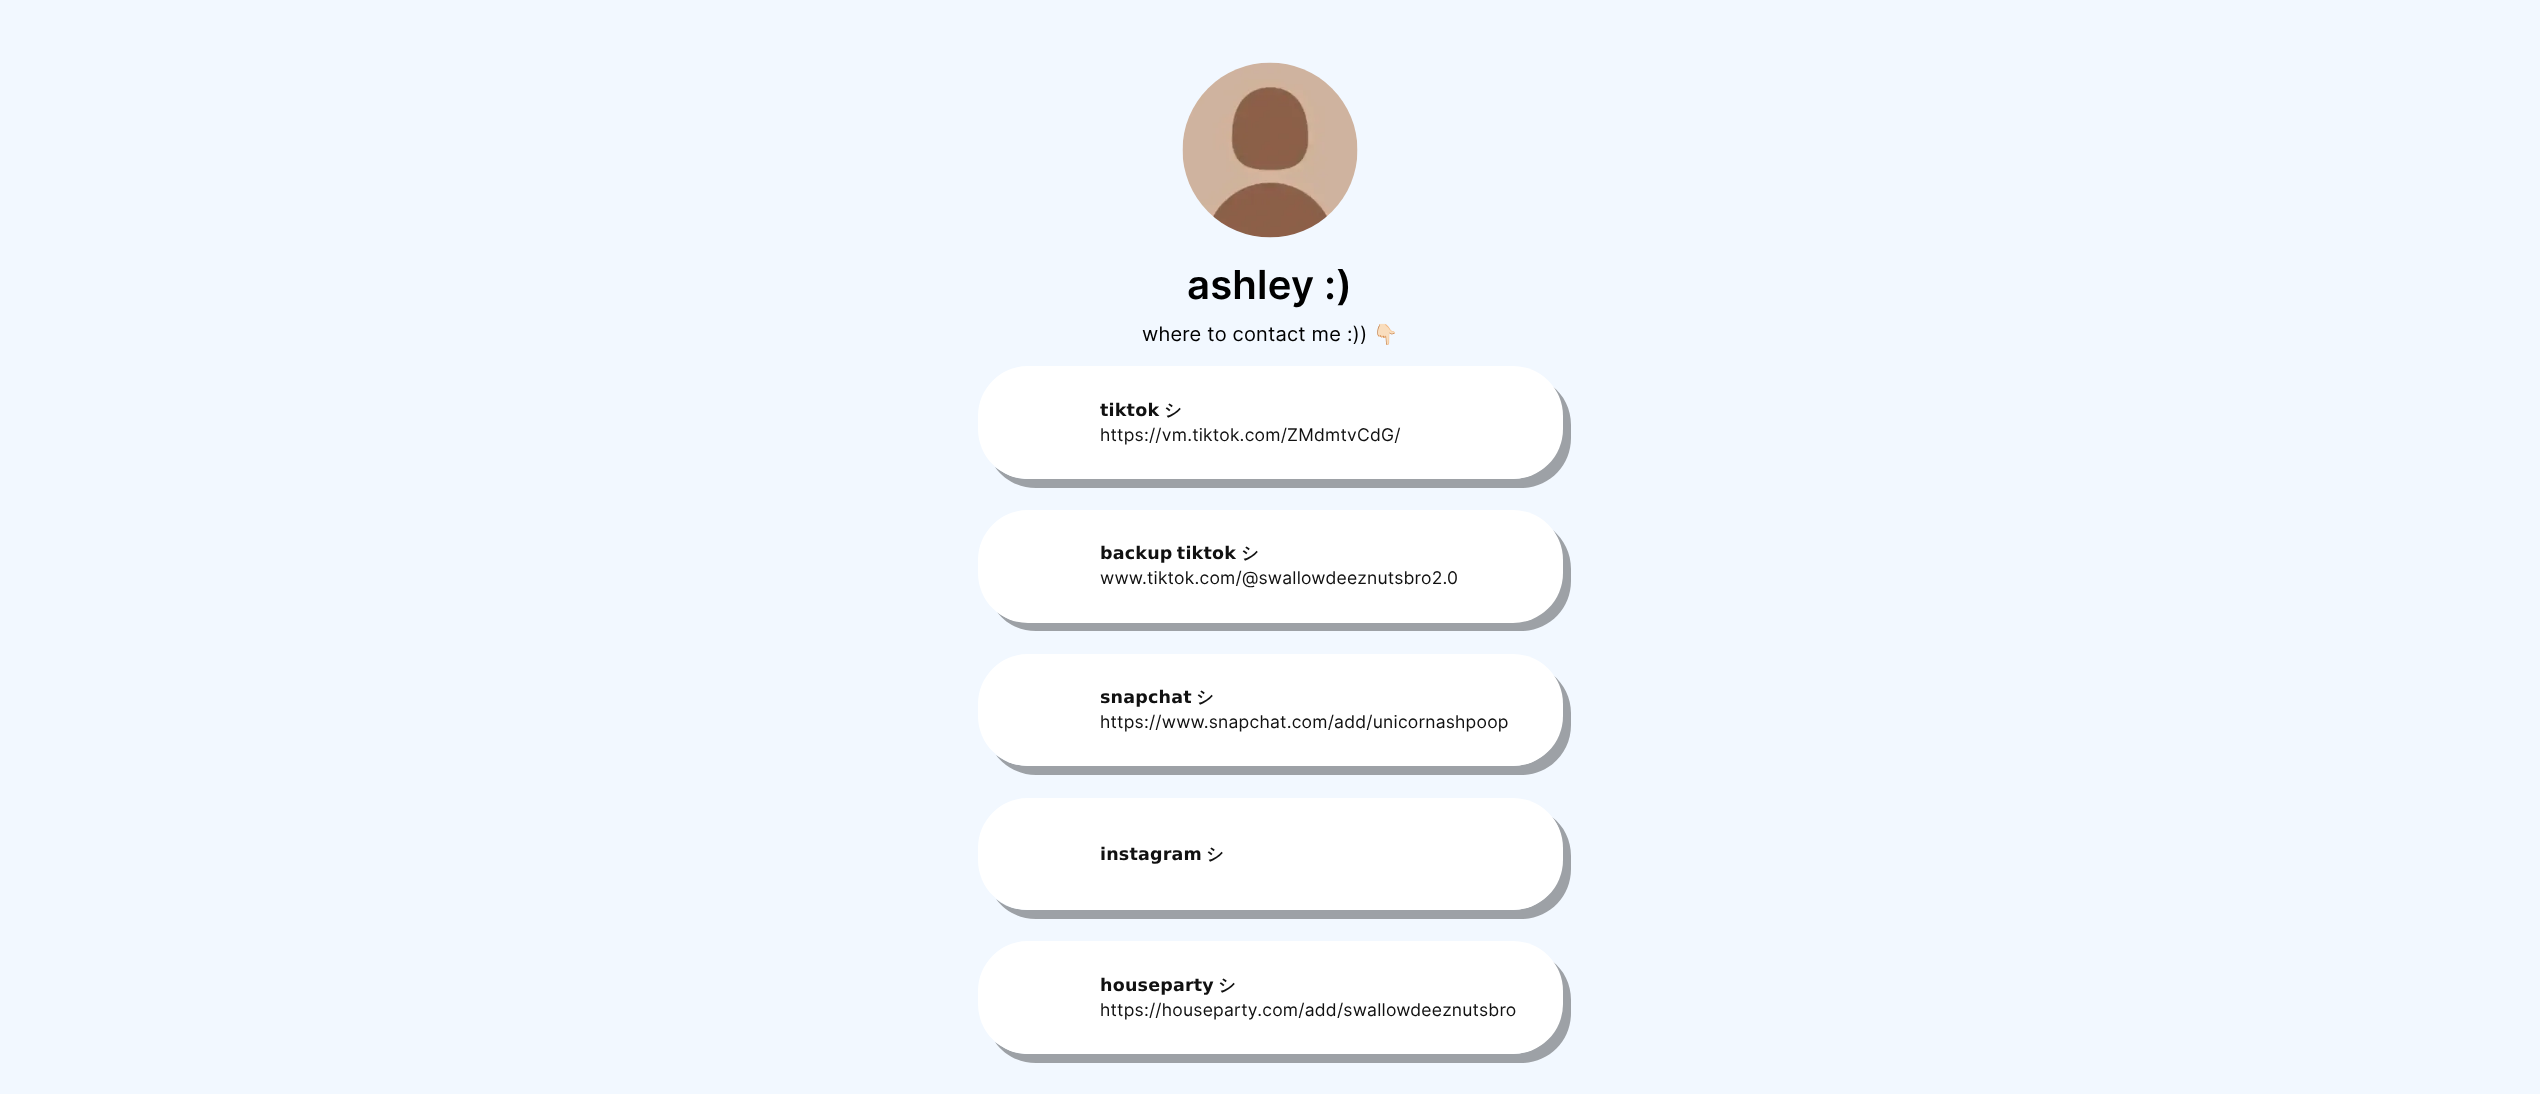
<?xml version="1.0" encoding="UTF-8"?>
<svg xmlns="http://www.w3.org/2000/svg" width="2540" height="1094">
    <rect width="100%" height="100%" fill="#F2F8FF"/>
    <image x="1182" y="62" width="176" height="176" href="img_01.png"/>
    <text x="1187" y="299" font-family="Inter" font-size="40" font-weight="600" letter-spacing="0.2" fill="#000000">ashley :)</text>
    <text x="1142" y="341" font-family="Inter" font-size="20" letter-spacing="0.2" fill="#000000">where to contact me :))</text>
    <text x="1373" y="341" font-family="Noto Color Emoji" font-size="20" letter-spacing="0.2" fill="#000000">👇🏻</text>
    <path d="M 995 467 C 1004 480 1019 488 1036 488 H 1521 C 1549 488 1571 466 1571 438 V 425 C 1571 409 1564 395 1552 386 C 1559 394 1562 405 1562 416 V 429 C 1562 456 1540 479 1512 479 H 1028 C 1015 479 1004 474 995 467 Z" fill="#9DA1A6"/>
    <rect x="978" y="366" width="585" height="113" rx="50" fill="#FFFFFF"/>
    <text x="1100" y="416" font-family="DejaVu Sans" font-size="17.5" font-weight="700" letter-spacing="0.2" fill="#111111">𝘁𝗶𝗸𝘁𝗼𝗸</text>
    <text x="1164" y="416" font-family="WenQuanYi Zen Hei" font-size="17.5" font-weight="700" letter-spacing="0.2" fill="#111111">シ</text>
    <text x="1100" y="441" font-family="Inter" font-size="17.5" letter-spacing="0.2" fill="#111111">https://vm.tiktok.com/ZMdmtvCdG/</text>
    <path d="M 997 612 C 1006 624 1020 631 1036 631 H 1521 C 1549 631 1571 609 1571 581 V 569 C 1571 553 1564 540 1553 530 C 1559 539 1562 549 1562 560 V 572 C 1562 600 1540 622 1512 622 H 1028 C 1016 622 1005 619 997 612 Z" fill="#9DA1A6"/>
    <rect x="978" y="510" width="585" height="113" rx="50" fill="#FFFFFF"/>
    <text x="1100" y="559" word-spacing="-2" font-family="DejaVu Sans" font-size="17.5" font-weight="700" letter-spacing="0.2" fill="#111111">𝗯𝗮𝗰𝗸𝘂𝗽 𝘁𝗶𝗸𝘁𝗼𝗸</text>
    <text x="1241" y="559" font-family="WenQuanYi Zen Hei" font-size="17.5" font-weight="700" letter-spacing="0.2" fill="#111111">シ</text>
    <text x="1100" y="584" font-family="Inter" font-size="17.5" letter-spacing="0.2" fill="#111111">www.tiktok.com/@swallowdeeznutsbro2.0</text>
    <path d="M 996 755 C 1005 767 1020 775 1036 775 H 1521 C 1549 775 1571 753 1571 725 V 713 C 1571 698 1564 684 1553 675 C 1559 683 1562 693 1562 704 V 716 C 1562 744 1540 766 1512 766 H 1028 C 1016 766 1005 762 996 755 Z" fill="#9DA1A6"/>
    <rect x="978" y="654" width="585" height="112" rx="50" fill="#FFFFFF"/>
    <text x="1100" y="703" font-family="DejaVu Sans" font-size="17.5" font-weight="700" letter-spacing="0.2" fill="#111111">𝘀𝗻𝗮𝗽𝗰𝗵𝗮𝘁</text>
    <text x="1196" y="703" font-family="WenQuanYi Zen Hei" font-size="17.5" font-weight="700" letter-spacing="0.2" fill="#111111">シ</text>
    <text x="1100" y="728" font-family="Inter" font-size="17.5" letter-spacing="0.2" fill="#111111">https://www.snapchat.com/add/unicornashpoop</text>
    <path d="M 996 899 C 1005 911 1019 919 1036 919 H 1521 C 1549 919 1571 897 1571 869 V 856 C 1571 840 1564 826 1552 817 C 1559 825 1562 836 1562 848 V 860 C 1562 888 1540 910 1512 910 H 1028 C 1015 910 1004 906 996 899 Z" fill="#9DA1A6"/>
    <rect x="978" y="798" width="585" height="112" rx="50" fill="#FFFFFF"/>
    <text x="1100" y="860" font-family="DejaVu Sans" font-size="17.5" font-weight="700" letter-spacing="0.2" fill="#111111">𝗶𝗻𝘀𝘁𝗮𝗴𝗿𝗮𝗺</text>
    <text x="1206" y="860" font-family="WenQuanYi Zen Hei" font-size="17.5" font-weight="700" letter-spacing="0.2" fill="#111111">シ</text>
    <path d="M 995 1042 C 1004 1055 1019 1063 1036 1063 H 1521 C 1549 1063 1571 1041 1571 1013 V 1000 C 1571 984 1564 970 1552 961 C 1559 969 1562 980 1562 991 V 1004 C 1562 1031 1540 1054 1512 1054 H 1028 C 1015 1054 1004 1049 995 1042 Z" fill="#9DA1A6"/>
    <rect x="978" y="941" width="585" height="113" rx="50" fill="#FFFFFF"/>
    <text x="1100" y="991" font-family="DejaVu Sans" font-size="17.5" font-weight="700" letter-spacing="0.2" fill="#111111">𝗵𝗼𝘂𝘀𝗲𝗽𝗮𝗿𝘁𝘆</text>
    <text x="1218" y="991" font-family="WenQuanYi Zen Hei" font-size="17.5" font-weight="700" letter-spacing="0.2" fill="#111111">シ</text>
    <text x="1100" y="1016" font-family="Inter" font-size="17.5" letter-spacing="0.2" fill="#111111">https://houseparty.com/add/swallowdeeznutsbro</text>
</svg>
